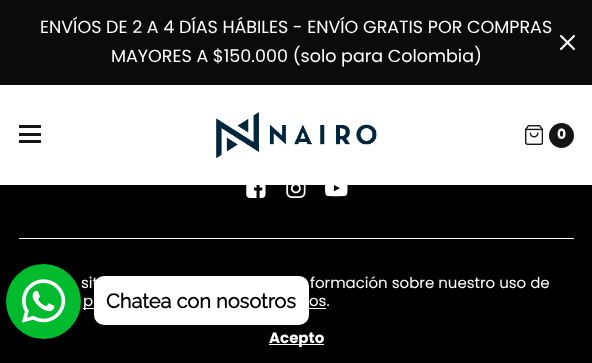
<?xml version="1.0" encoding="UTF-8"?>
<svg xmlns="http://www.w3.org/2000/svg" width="592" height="363">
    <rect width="100%" height="100%" fill="#000000"/>
    <rect x="0" y="0" width="592" height="85" fill="#0B0B0B"/>
    <text x="40" y="33" font-family="Poppins" font-size="17.5" fill="#FFFFFF">ENVÍOS DE 2 A 4 DÍAS HÁBILES - ENVÍO GRATIS POR COMPRAS</text>
    <text x="111" y="62" font-family="Poppins" font-size="17.5" fill="#FFFFFF">MAYORES A $150.000 (solo para Colombia)</text>
    <image x="560" y="35" width="15" height="15" href="img_01.png"/>
    <rect x="0" y="85" width="592" height="100" fill="#FFFFFF"/>
    <rect x="19" y="125" width="22" height="3" fill="#151515"/>
    <rect x="19" y="133" width="22" height="3" fill="#151515"/>
    <rect x="19" y="140" width="22" height="3" fill="#151515"/>
    <image x="216" y="112" width="161" height="46" href="img_02.png"/>
    <image x="525" y="125" width="18" height="20" href="img_03.png"/>
    <circle cx="561.5" cy="135.5" r="12.5" fill="#151515"/>
    <text x="557" y="139" font-family="Poppins" font-size="14" font-weight="700" fill="#FFFFFF">0</text>
    <image x="246" y="185" width="20" height="13" href="img_04.png"/>
    <image x="286" y="185" width="20" height="13" href="img_05.png"/>
    <image x="325" y="185" width="23" height="12" href="img_06.png"/>
    <rect x="19" y="238" width="555" height="1" fill="#FFFFFF"/>
    <text x="81" y="288" font-family="Poppins" font-size="15" fill="#FFFFFF">sit</text>
    <text x="310" y="288" font-family="Poppins" font-size="15" fill="#FFFFFF">formación sobre nuestro uso de</text>
    <rect x="83" y="308" width="243" height="1" fill="#FFFFFF"/>
    <text x="83" y="306" font-family="Poppins" font-size="15" fill="#FFFFFF">p</text>
    <text x="309" y="306" font-family="Poppins" font-size="15" fill="#FFFFFF">os.</text>
    <rect x="269" y="344" width="55" height="1" fill="#FFFFFF"/>
    <text x="269" y="343" font-family="Poppins" font-size="15" font-weight="700" fill="#FFFFFF">Acepto</text>
    <circle cx="43.5" cy="301.5" r="37.5" fill="#00BB2D"/>
    <image x="21" y="279" width="45" height="44" href="img_07.png"/>
    <rect x="94" y="276" width="215" height="49" rx="10" fill="#FFFFFF"/>
    <text x="106" y="308" font-family="Raleway" font-size="20" font-weight="700" fill="#000000">Chatea con nosotros</text>
</svg>
